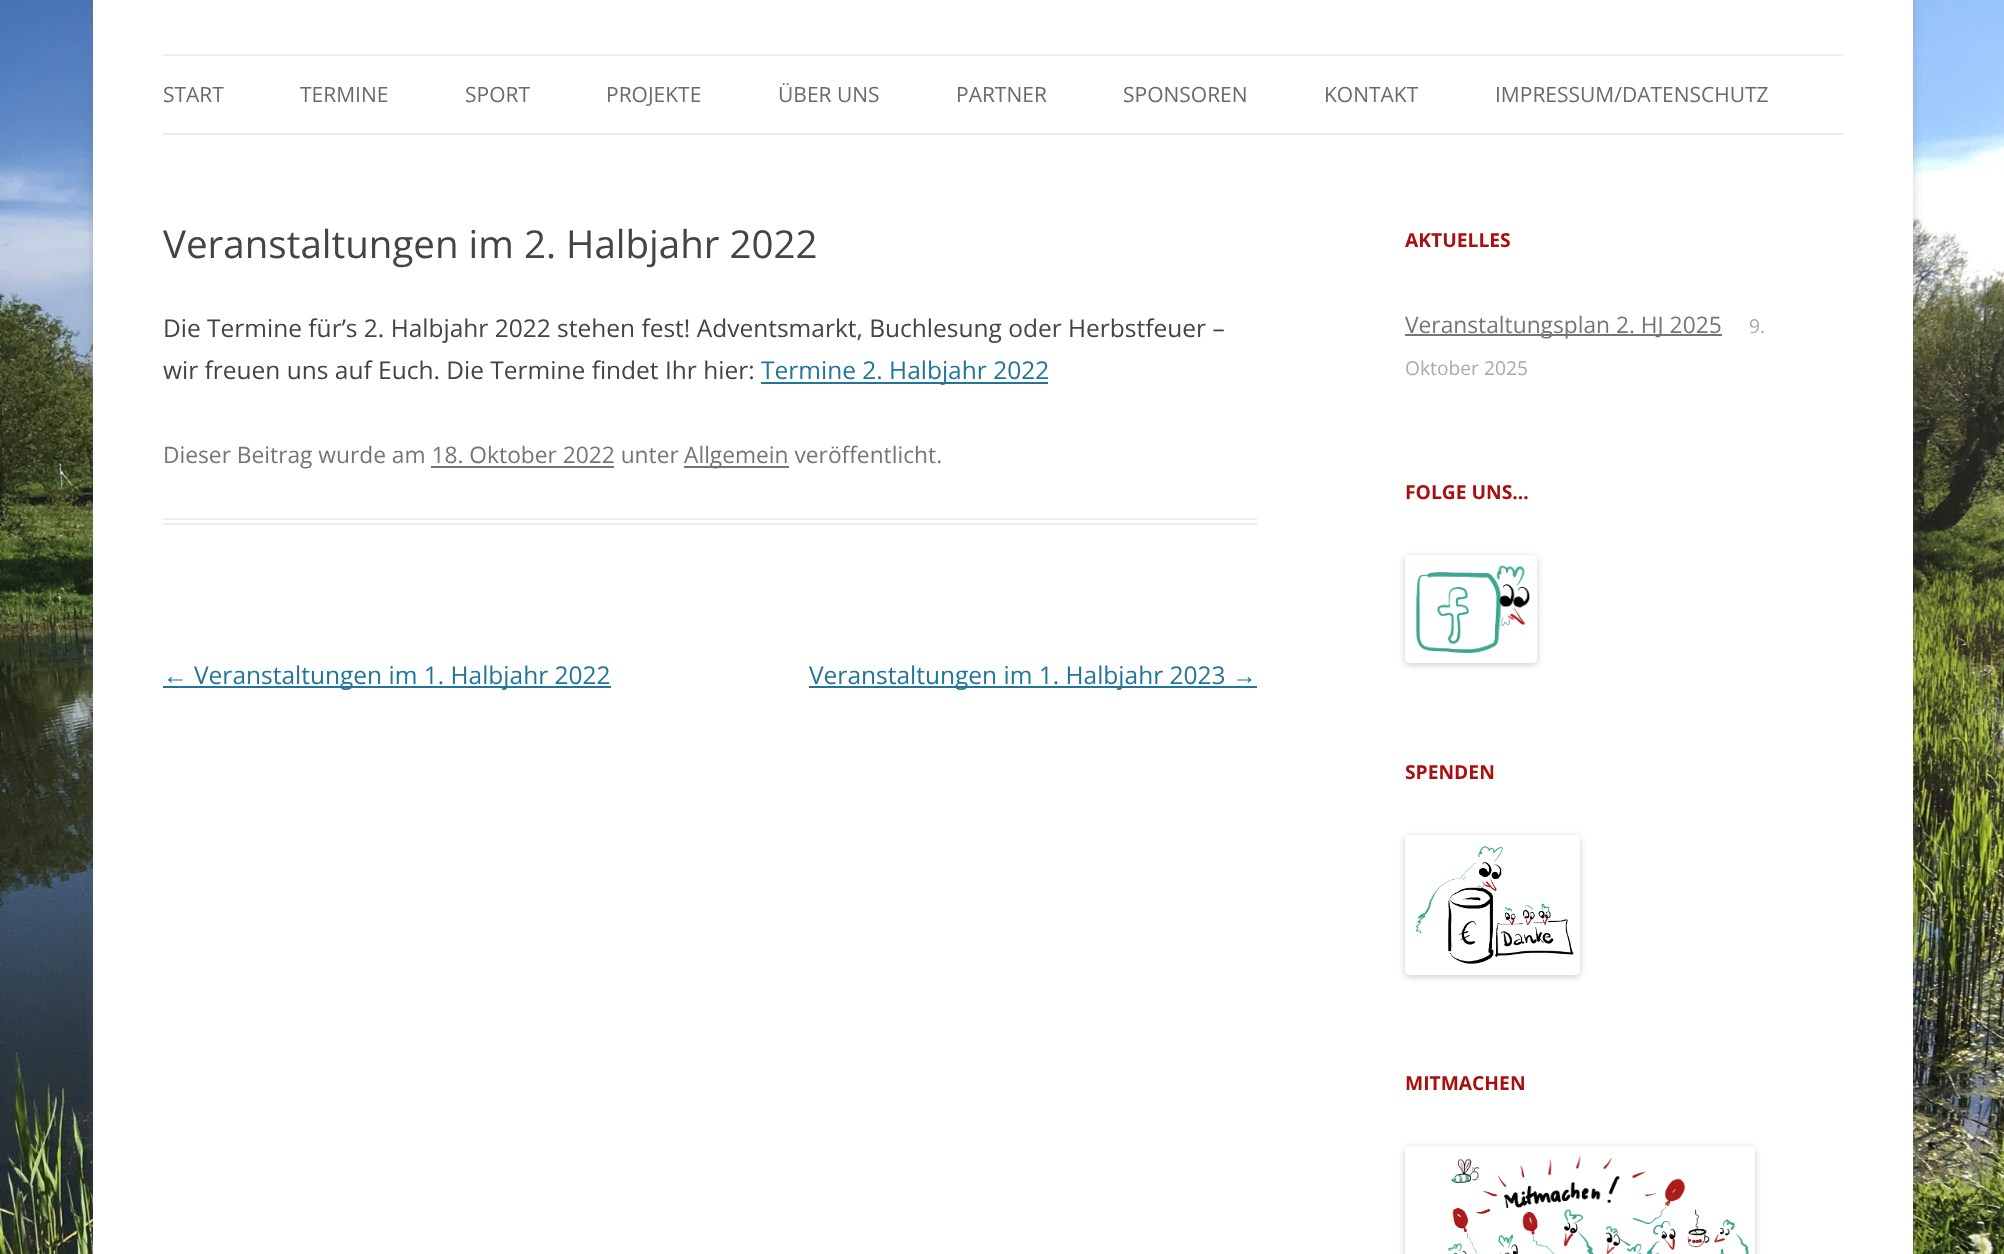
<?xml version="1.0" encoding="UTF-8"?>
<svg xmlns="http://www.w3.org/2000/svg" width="2004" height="1254">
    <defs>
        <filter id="blur1" x="-50%" y="-200%" width="200%" height="500%"><feGaussianBlur stdDeviation="5"/></filter>
        <clipPath id="clip1"><path d="M 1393 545 H 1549 V 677 H 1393 Z M 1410 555 H 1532 C 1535 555 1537 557 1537 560 V 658 C 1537 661 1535 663 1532 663 H 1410 C 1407 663 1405 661 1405 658 V 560 C 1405 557 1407 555 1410 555 Z" clip-rule="evenodd"/></clipPath>
        <filter id="blur2" x="-50%" y="-200%" width="200%" height="500%"><feGaussianBlur stdDeviation="3.5"/></filter>
        <clipPath id="clip2"><path d="M 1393 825 H 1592 V 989 H 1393 Z M 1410 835 H 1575 C 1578 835 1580 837 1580 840 V 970 C 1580 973 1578 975 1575 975 H 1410 C 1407 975 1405 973 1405 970 V 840 C 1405 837 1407 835 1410 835 Z" clip-rule="evenodd"/></clipPath>
        <clipPath id="clip3"><path d="M 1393 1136 H 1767 V 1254 H 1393 Z M 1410 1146 H 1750 C 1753 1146 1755 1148 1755 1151 V 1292 C 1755 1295 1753 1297 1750 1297 H 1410 C 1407 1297 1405 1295 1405 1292 V 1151 C 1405 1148 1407 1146 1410 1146 Z" clip-rule="evenodd"/></clipPath>
    </defs>
    <rect width="100%" height="100%" fill="#FFFFFF"/>
    <image x="0" y="0" width="2004" height="1254" href="img_01.png"/>
    <rect x="93" y="-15" width="1820" height="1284" fill="#646464" fill-opacity="0.3" filter="url(#blur1)"/>
    <rect x="93" y="0" width="1820" height="1254" fill="#FFFFFF"/>
    <rect x="163" y="54" width="1680" height="2" fill="#EDEDED"/>
    <rect x="163" y="133" width="1680" height="2" fill="#EDEDED"/>
    <text x="163" y="102" font-family="Open Sans" font-size="21" fill="#6A6A6A">START</text>
    <text x="300" y="102" font-family="Open Sans" font-size="21" fill="#6A6A6A">TERMINE</text>
    <text x="465" y="102" font-family="Open Sans" font-size="21" fill="#6A6A6A">SPORT</text>
    <text x="606" y="102" font-family="Open Sans" font-size="21" fill="#6A6A6A">PROJEKTE</text>
    <text x="778" y="102" font-family="Open Sans" font-size="21" fill="#6A6A6A">ÜBER UNS</text>
    <text x="956" y="102" font-family="Open Sans" font-size="21" fill="#6A6A6A">PARTNER</text>
    <text x="1123" y="102" font-family="Open Sans" font-size="21" fill="#6A6A6A">SPONSOREN</text>
    <text x="1324" y="102" font-family="Open Sans" font-size="21" fill="#6A6A6A">KONTAKT</text>
    <text x="1495" y="102" font-family="Open Sans" font-size="21" fill="#6A6A6A">IMPRESSUM/DATENSCHUTZ</text>
    <rect x="163" y="518" width="1094" height="2" fill="#EDEDED"/>
    <rect x="163" y="523" width="1094" height="2" fill="#EDEDED"/>
    <text x="163" y="258" font-family="Open Sans" font-size="38.5" fill="#444444">Veranstaltungen im 2. Halbjahr 2022</text>
    <text font-family="Open Sans" font-size="24.5" fill="#444444">
        <tspan x="163" y="337">Die Termine für’s 2. Halbjahr 2022 stehen fest! Adventsmarkt, Buchlesung oder Herbstfeuer –</tspan>
        <tspan x="163" y="379">wir freuen uns auf Euch. Die Termine findet Ihr hier:</tspan>
    </text>
    <rect x="761" y="382" width="287" height="2" fill="#21759B"/>
    <text x="761" y="379" font-family="Open Sans" font-size="24.5" fill="#21759B">Termine 2. Halbjahr 2022</text>
    <text x="163" y="463" font-family="Open Sans" font-size="22.75" fill="#757575">Dieser Beitrag wurde am 18. Oktober 2022 unter</text>
    <rect x="684" y="466" width="105" height="2" fill="#757575"/>
    <text x="684" y="463" font-family="Open Sans" font-size="22.75" fill="#757575">Allgemein veröffentlicht.</text>
    <rect x="431" y="466" width="183" height="2" fill="#757575"/>
    <text x="163" y="684" font-family="Liberation Sans" font-size="24.5" fill="#21759B">←</text>
    <rect x="163" y="686" width="448" height="2" fill="#21759B"/>
    <text x="194" y="684" font-family="Open Sans" font-size="24.5" fill="#21759B">Veranstaltungen im 1. Halbjahr 2022</text>
    <rect x="809" y="686" width="448" height="2" fill="#21759B"/>
    <text x="809" y="684" font-family="Open Sans" font-size="24.5" fill="#21759B">Veranstaltungen im 1. Halbjahr 2023</text>
    <text x="1232" y="684" font-family="Liberation Sans" font-size="24.5" fill="#21759B">→</text>
    <text x="1405" y="247" font-family="Open Sans" font-size="19.25" font-weight="700" fill="#AA0E0E">AKTUELLES</text>
    <rect x="1405" y="334" width="317" height="2" fill="#757575"/>
    <text x="1405" y="333" font-family="Open Sans" font-size="22.75" fill="#757575">Veranstaltungsplan 2. HJ 2025</text>
    <text x="1749" y="333" font-family="Open Sans" font-size="19.25" fill="#AAAAAA">9.</text>
    <text x="1405" y="375" font-family="Open Sans" font-size="19.25" fill="#AAAAAA">Oktober 2025</text>
    <text x="1405" y="499" font-family="Open Sans" font-size="19.25" font-weight="700" fill="#AA0E0E">FOLGE UNS…</text>
    <g clip-path="url(#clip1)">
        <rect x="1405" y="557" width="132" height="108" rx="5" fill="#000000" fill-opacity="0.2" filter="url(#blur2)"/>
    </g>
    <image x="1415" y="565" width="115" height="89" href="img_02.png"/>
    <text x="1405" y="779" font-family="Open Sans" font-size="19.25" font-weight="700" fill="#AA0E0E">SPENDEN</text>
    <g clip-path="url(#clip2)">
        <rect x="1405" y="837" width="175" height="140" rx="5" fill="#000000" fill-opacity="0.2" filter="url(#blur2)"/>
    </g>
    <image x="1415" y="846" width="159" height="118" href="img_03.png"/>
    <text x="1405" y="1090" font-family="Open Sans" font-size="19.25" font-weight="700" fill="#AA0E0E">MITMACHEN</text>
    <g clip-path="url(#clip3)">
        <rect x="1405" y="1148" width="350" height="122" rx="5" fill="#000000" fill-opacity="0.2" filter="url(#blur2)"/>
    </g>
    <image x="1447" y="1155" width="302" height="99" href="img_04.png"/>
</svg>
